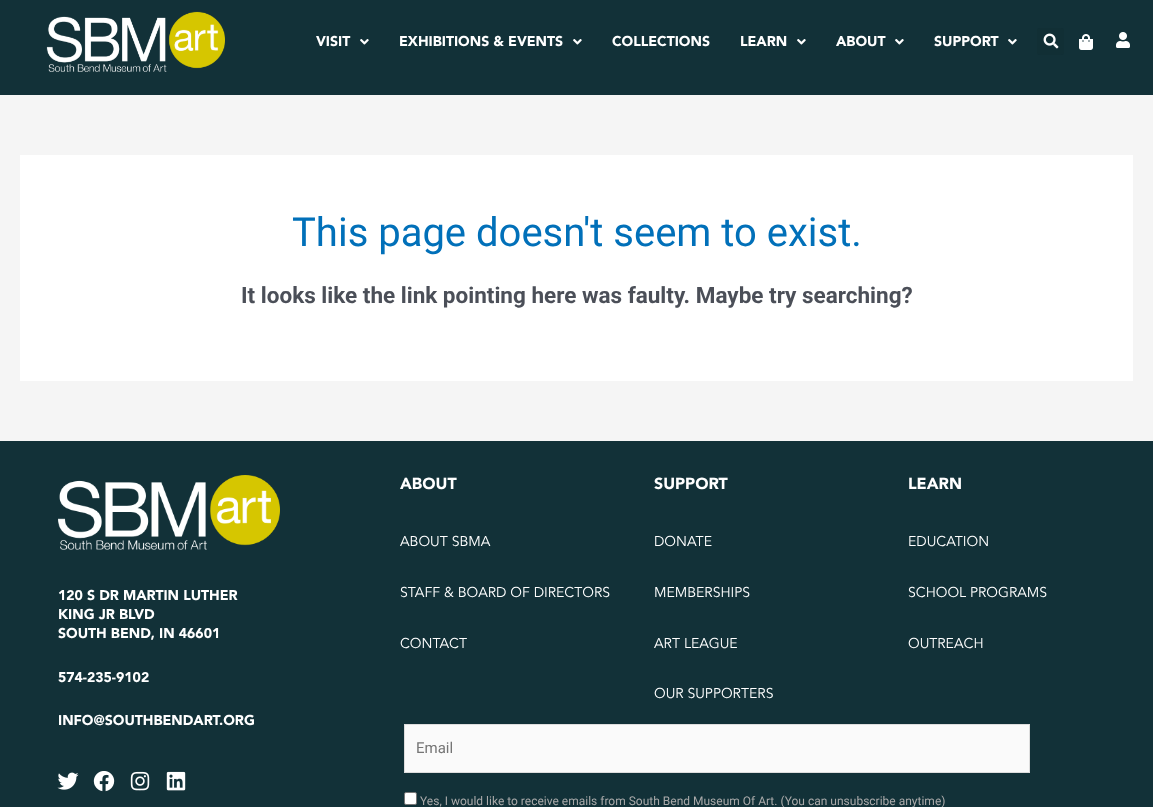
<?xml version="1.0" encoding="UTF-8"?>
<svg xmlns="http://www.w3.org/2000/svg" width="1153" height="807">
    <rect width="100%" height="100%" fill="#F5F5F5"/>
    <rect x="0" y="0" width="1153" height="95" fill="#123138"/>
    <image x="46" y="11" width="179" height="61" href="img_01.png"/>
    <text x="316" y="46" font-family="Avenir" font-size="14" font-weight="900" fill="#FFFFFF">VISIT</text>
    <image x="360" y="39" width="9" height="6" href="img_02.png"/>
    <text x="399" y="46" font-family="Avenir" font-size="14" font-weight="900" fill="#FFFFFF">EXHIBITIONS &amp; EVENTS</text>
    <image x="573" y="39" width="9" height="6" href="img_02.png"/>
    <text x="612" y="46" font-family="Avenir" font-size="14" font-weight="900" fill="#FFFFFF">COLLECTIONS</text>
    <text x="740" y="46" font-family="Avenir" font-size="14" font-weight="900" fill="#FFFFFF">LEARN</text>
    <image x="797" y="39" width="9" height="6" href="img_02.png"/>
    <text x="836" y="46" font-family="Avenir" font-size="14" font-weight="900" fill="#FFFFFF">ABOUT</text>
    <image x="895" y="39" width="9" height="6" href="img_02.png"/>
    <text x="934" y="46" font-family="Avenir" font-size="14" font-weight="900" fill="#FFFFFF">SUPPORT</text>
    <image x="1008" y="39" width="9" height="6" href="img_02.png"/>
    <rect x="1037" y="28" width="27" height="27" rx="3" fill="#112F35"/>
    <image x="1043" y="33" width="16" height="16" href="img_03.png"/>
    <image x="1079" y="34" width="14" height="16" href="img_04.png"/>
    <image x="1116" y="32" width="14" height="16" href="img_05.png"/>
    <rect x="20" y="155" width="1113" height="226" fill="#FFFFFF"/>
    <text x="292" y="246" font-family="Roboto" font-size="40" fill="#0170B9">This page doesn't seem to exist.</text>
    <text x="241" y="303" font-family="Roboto" font-size="22.5" font-weight="700" fill="#4B4F58">It looks like the link pointing here was faulty. Maybe try searching?</text>
    <rect x="0" y="441" width="1153" height="366" fill="#123138"/>
    <image x="58" y="475" width="222" height="75" href="img_06.png"/>
    <text font-family="Avenir" font-size="14" font-weight="900" fill="#FFFFFF">
        <tspan x="58" y="600">120 S DR MARTIN LUTHER</tspan>
        <tspan x="58" y="619">KING JR BLVD</tspan>
        <tspan x="58" y="638">SOUTH BEND, IN 46601</tspan>
    </text>
    <text x="58" y="682" font-family="Avenir" font-size="14" font-weight="900" fill="#FFFFFF">574-235-9102</text>
    <text x="58" y="725" font-family="Avenir" font-size="14" font-weight="900" fill="#FFFFFF">INFO@SOUTHBENDART.ORG</text>
    <image x="57" y="772" width="22" height="18" href="img_07.png"/>
    <image x="93" y="771" width="22" height="21" href="img_08.png"/>
    <image x="130" y="771" width="20" height="20" href="img_09.png"/>
    <image x="166" y="771" width="20" height="20" href="img_10.png"/>
    <text x="400" y="489" font-family="Avenir" font-size="16" font-weight="900" fill="#FFFFFF">ABOUT</text>
    <text x="400" y="546" font-family="Avenir" font-size="14" fill="#FFFFFF">ABOUT SBMA</text>
    <text x="400" y="597" font-family="Avenir" font-size="14" fill="#FFFFFF">STAFF &amp; BOARD OF DIRECTORS</text>
    <text x="400" y="648" font-family="Avenir" font-size="14" fill="#FFFFFF">CONTACT</text>
    <text x="654" y="489" font-family="Avenir" font-size="16" font-weight="900" fill="#FFFFFF">SUPPORT</text>
    <text x="654" y="546" font-family="Avenir" font-size="14" fill="#FFFFFF">DONATE</text>
    <text x="654" y="597" font-family="Avenir" font-size="14" fill="#FFFFFF">MEMBERSHIPS</text>
    <text x="654" y="648" font-family="Avenir" font-size="14" fill="#FFFFFF">ART LEAGUE</text>
    <text x="654" y="698" font-family="Avenir" font-size="14" fill="#FFFFFF">OUR SUPPORTERS</text>
    <text x="908" y="489" font-family="Avenir" font-size="16" font-weight="900" fill="#FFFFFF">LEARN</text>
    <text x="908" y="546" font-family="Avenir" font-size="14" fill="#FFFFFF">EDUCATION</text>
    <text x="908" y="597" font-family="Avenir" font-size="14" fill="#FFFFFF">SCHOOL PROGRAMS</text>
    <text x="908" y="648" font-family="Avenir" font-size="14" fill="#FFFFFF">OUTREACH</text>
    <rect x="404.5" y="724.5" width="625" height="48" fill="#FAFAFA" stroke="#DDDDDD"/>
    <text x="416" y="753" font-family="Roboto" font-size="15" fill="#757575">Email</text>
    <rect x="404.5" y="792.5" width="12" height="12" rx="1.5" fill="#FFFFFF" stroke="#767676"/>
    <text x="420" y="805" font-family="Roboto" font-size="12" fill="#AAAAAA">Yes, I would like to receive emails from South Bend Museum Of Art. (You can unsubscribe anytime)</text>
</svg>
